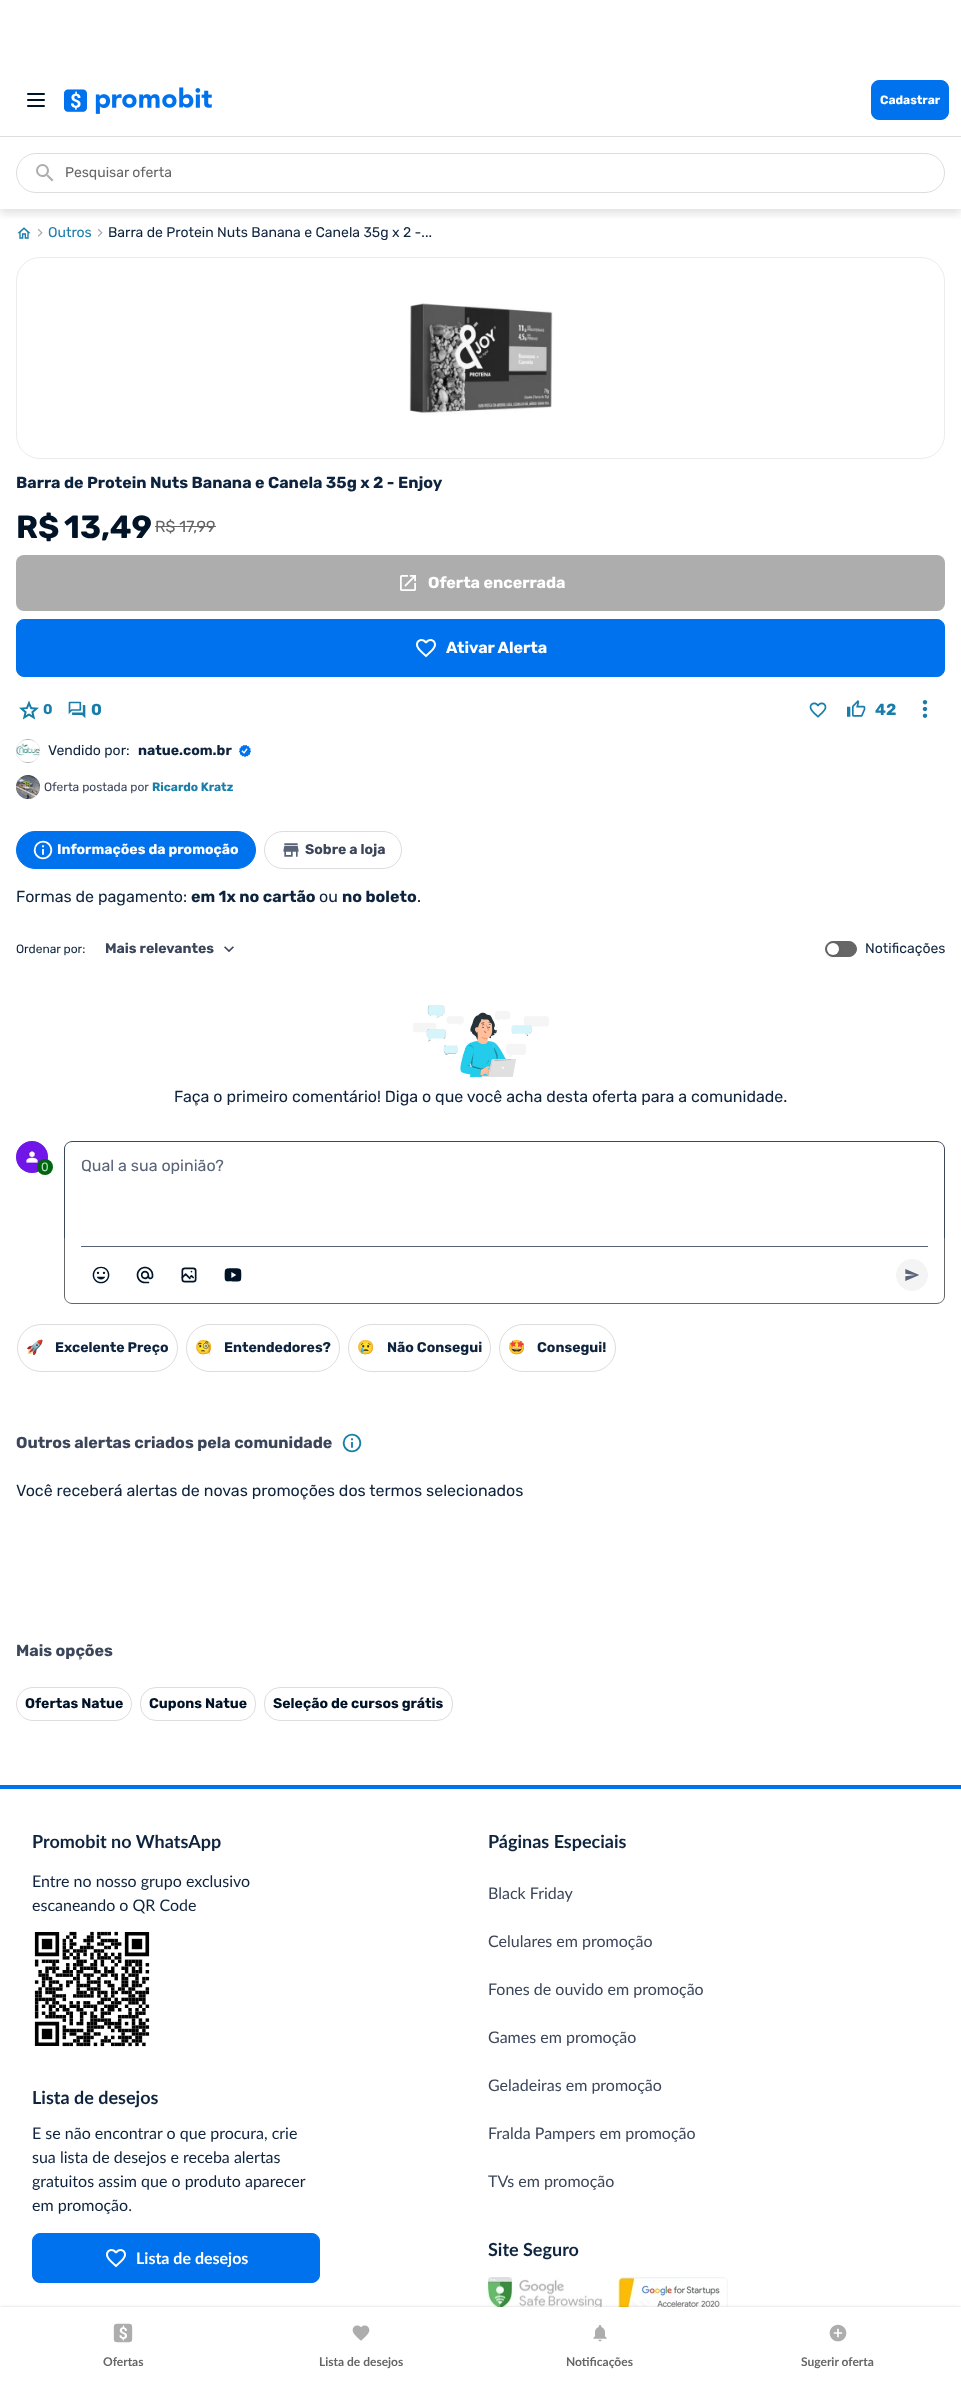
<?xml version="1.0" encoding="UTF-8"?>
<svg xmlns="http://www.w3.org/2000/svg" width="961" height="2387">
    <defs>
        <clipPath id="clip1"><rect x="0" y="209" width="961" height="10"/></clipPath>
        <filter id="blur1" x="-50%" y="-200%" width="200%" height="500%"><feGaussianBlur stdDeviation="5"/></filter>
        <filter id="blur2" x="-50%" y="-200%" width="200%" height="500%"><feGaussianBlur stdDeviation="2"/></filter>
    </defs>
    <rect width="100%" height="100%" fill="#FFFFFF"/>
    <image x="17" y="227" width="14" height="12" href="img_04.png"/>
    <image x="37" y="228" width="6" height="9" href="img_05.png"/>
    <image x="97" y="228" width="6" height="9" href="img_05.png"/>
    <g clip-path="url(#clip1)">
        <rect x="0" y="141" width="961" height="72" fill="#575757" fill-opacity="0.2" filter="url(#blur1)"/>
    </g>
    <rect x="1" y="134" width="959" height="2" fill="#FFFFFF"/>
    <rect x="0" y="136" width="961" height="1" fill="#DDDDDD"/>
    <image x="27" y="93" width="18" height="14" href="img_01.png"/>
    <image x="64" y="87" width="148" height="27" href="img_02.png"/>
    <rect x="871.5" y="80.5" width="77" height="39" rx="7.5" fill="#0072ED" stroke="#0072ED"/>
    <text x="880" y="104" font-family="Rubik" font-size="12" font-weight="700" fill="#FFFFFF">Cadastrar</text>
    <rect x="16.5" y="153.5" width="928" height="39" rx="19.5" fill="none" stroke="#DDDDDD"/>
    <image x="36" y="164" width="18" height="18" href="img_03.png"/>
    <text x="65" y="177" font-family="Rubik" font-size="14" fill="#666666">Pesquisar oferta</text>
    <text x="48" y="237" font-family="Rubik" font-size="14" fill="#197DAA">Outros</text>
    <text x="108" y="237" font-family="Rubik" font-size="14" fill="#0E243E">Barra de Protein Nuts Banana e Canela 35g x 2 -...</text>
    <rect x="16.5" y="257.5" width="928" height="201" rx="23.5" fill="none" stroke="#ECECEC"/>
    <image x="409" y="303" width="144" height="112" href="img_06.png"/>
    <text x="16" y="488" font-family="Rubik" font-size="16" font-weight="700" fill="#0E243E">Barra de Protein Nuts Banana e Canela 35g x 2 - Enjoy</text>
    <text x="16" y="538" font-family="Rubik" font-size="32" font-weight="700" fill="#011327">R$</text>
    <text x="64" y="538" font-family="Rubik" font-size="32" font-weight="700" fill="#011327">13,49</text>
    <text x="155" y="532" font-family="Rubik" font-size="16" fill="#666666">R$ 17,99</text>
    <rect x="155" y="526" width="61" height="1" fill="#666666"/>
    <rect x="16" y="555" width="929" height="56" rx="8" fill="#ADADAD"/>
    <image x="400" y="575" width="16" height="16" href="img_07.png"/>
    <text x="428" y="588" font-family="Rubik" font-size="16" font-weight="700" fill="#FFFFFF">Oferta encerrada</text>
    <rect x="16.5" y="619.5" width="928" height="57" rx="7.5" fill="#0072ED" stroke="#0072ED"/>
    <image x="416" y="639" width="20" height="19" href="img_08.png"/>
    <text x="446" y="653" font-family="Rubik" font-size="16" font-weight="700" fill="#FFFFFF">Ativar Alerta</text>
    <image x="19" y="700" width="20" height="20" href="img_09.png"/>
    <text x="43" y="714" font-family="Rubik" font-size="14" font-weight="700" fill="#197DAA">0</text>
    <image x="68" y="701" width="18" height="18" href="img_10.png"/>
    <text x="91" y="715" font-family="Rubik" font-size="16" font-weight="700" fill="#197DAA">0</text>
    <image x="809" y="702" width="18" height="16" href="img_11.png"/>
    <image x="847" y="700" width="19" height="17" href="img_12.png"/>
    <text x="875" y="715" font-family="Rubik" font-size="16" font-weight="700" fill="#197DAA">42</text>
    <image x="922" y="700" width="6" height="18" href="img_13.png"/>
    <circle cx="28" cy="751" r="11.5" fill="none" stroke="#ADADAD"/>
    <image x="16" y="740" width="24" height="22" href="img_14.png"/>
    <text x="48" y="755" font-family="Rubik" font-size="14" fill="#0E243E">Vendido por:</text>
    <text x="138" y="755" font-family="Rubik" font-size="14" font-weight="700" fill="#0E243E">natue.com.br</text>
    <image x="239" y="745" width="12" height="12" href="img_15.png"/>
    <circle cx="28" cy="787" r="11.5" fill="none" stroke="#ADADAD"/>
    <image x="16" y="775" width="24" height="24" href="img_16.png"/>
    <text x="44" y="791" font-family="Rubik" font-size="12" fill="#3C465A">Oferta postada por</text>
    <text x="152" y="791" font-family="Rubik" font-size="12" font-weight="700" fill="#197DAA">Ricardo Kratz</text>
    <rect x="16.5" y="831.5" width="239" height="37" rx="18.5" fill="#0072ED" stroke="#0072ED"/>
    <image x="33" y="840" width="20" height="20" href="img_17.png"/>
    <text x="57" y="854" font-family="Rubik" font-size="14" font-weight="700" fill="#FFFFFF">Informações da promoção</text>
    <rect x="264.5" y="831.5" width="137" height="37" rx="18.5" fill="none" stroke="#DDDDDD"/>
    <image x="283" y="843" width="16" height="14" href="img_18.png"/>
    <text x="305" y="854" font-family="Rubik" font-size="14" font-weight="700" fill="#3C465A">Sobre a loja</text>
    <text x="16" y="902" font-family="Rubik" font-size="16" fill="#0E243E">Formas de pagamento:</text>
    <text x="191" y="902" font-family="Rubik" font-size="16" font-weight="700" fill="#0E243E">em 1x no cartão</text>
    <text x="319" y="902" font-family="Rubik" font-size="16" fill="#0E243E">ou</text>
    <text x="342" y="902" font-family="Rubik" font-size="16" font-weight="700" fill="#0E243E">no boleto</text>
    <text x="417" y="902" font-family="Rubik" font-size="16" fill="#0E243E">.</text>
    <text x="16" y="953" font-family="Rubik" font-size="12" fill="#0E243E">Ordenar por:</text>
    <text x="105" y="953" font-family="Rubik" font-size="14" font-weight="700" fill="#3C465A">Mais relevantes</text>
    <image x="224" y="946" width="10" height="7" href="img_19.png"/>
    <rect x="825.5" y="941.5" width="31" height="15" rx="7.5" fill="#666666" stroke="#666666"/>
    <rect x="827" y="945" width="12" height="12" rx="6" fill="#000000" fill-opacity="0.1" filter="url(#blur2)"/>
    <circle cx="833" cy="949" r="6" fill="#FFFFFF"/>
    <text x="865" y="953" font-family="Rubik" font-size="14" fill="#0E243E">Notificações</text>
    <image x="413" y="1005" width="136" height="72" href="img_20.png"/>
    <text x="174" y="1102" font-family="Rubik" font-size="16" fill="#0E243E">Faça o primeiro comentário! Diga o que você acha desta oferta para a comunidade.</text>
    <circle cx="32" cy="1157" r="15.5" fill="none" stroke="#ADADAD"/>
    <image x="16" y="1141" width="32" height="32" href="img_21.png"/>
    <circle cx="45" cy="1167" r="8" fill="#006511"/>
    <text x="41" y="1171" font-family="Rubik" font-size="12" fill="#ACE1B3">0</text>
    <path d="M 72 1141 H 937 C 941 1141 945 1145 945 1149 V 1238 H 64 V 1149 C 64 1145 68 1141 72 1141 Z M 72 1142 H 937 C 941 1142 944 1145 944 1149 V 1238 H 65 V 1149 C 65 1145 68 1142 72 1142 Z" fill="#3C465A" fill-rule="evenodd"/>
    <text x="81" y="1171" font-family="Rubik" font-size="16" fill="#5A6478">Qual a sua opinião?</text>
    <path d="M 64 1238 H 945 V 1296 C 945 1300 941 1304 937 1304 H 72 C 68 1304 64 1300 64 1296 Z M 65 1238 H 944 V 1296 C 944 1300 941 1303 937 1303 H 72 C 68 1303 65 1300 65 1296 Z" fill="#666666" fill-rule="evenodd"/>
    <rect x="81" y="1246" width="847" height="1" fill="#5A6478"/>
    <image x="92" y="1266" width="18" height="18" href="img_22.png"/>
    <image x="136" y="1266" width="18" height="18" href="img_23.png"/>
    <image x="181" y="1267" width="16" height="16" href="img_24.png"/>
    <image x="224" y="1268" width="18" height="14" href="img_25.png"/>
    <circle cx="912" cy="1275" r="15.5" fill="#F4F4F4" stroke="#F4F4F4"/>
    <image x="905" y="1269" width="14" height="12" href="img_26.png"/>
    <rect x="17.5" y="1324.5" width="160" height="47" rx="23.5" fill="none" stroke="#DDDDDD"/>
    <text x="26" y="1352" font-family="Noto Color Emoji" font-size="14" font-weight="700" fill="#0E243E">🚀</text>
    <text x="55" y="1352" font-family="Rubik" font-size="14" font-weight="700" fill="#0E243E">Excelente Preço</text>
    <rect x="186.5" y="1324.5" width="153" height="47" rx="23.5" fill="none" stroke="#DDDDDD"/>
    <text x="195" y="1352" font-family="Noto Color Emoji" font-size="14" font-weight="700" fill="#0E243E">🧐</text>
    <text x="224" y="1352" font-family="Rubik" font-size="14" font-weight="700" fill="#0E243E">Entendedores?</text>
    <rect x="348.5" y="1324.5" width="142" height="47" rx="23.5" fill="none" stroke="#DDDDDD"/>
    <text x="357" y="1352" font-family="Noto Color Emoji" font-size="14" font-weight="700" fill="#0E243E">😢</text>
    <text x="387" y="1352" font-family="Rubik" font-size="14" font-weight="700" fill="#0E243E">Não Consegui</text>
    <rect x="499.5" y="1324.5" width="116" height="47" rx="23.5" fill="none" stroke="#DDDDDD"/>
    <text x="508" y="1352" font-family="Noto Color Emoji" font-size="14" font-weight="700" fill="#0E243E">🤩</text>
    <text x="537" y="1352" font-family="Rubik" font-size="14" font-weight="700" fill="#0E243E">Consegui!</text>
    <text x="16" y="1448" font-family="Rubik" font-size="16" font-weight="700" fill="#3C465A">Outros alertas criados pela comunidade</text>
    <image x="342" y="1433" width="20" height="20" href="img_27.png"/>
    <text x="16" y="1496" font-family="Rubik" font-size="16" fill="#0E243E">Você receberá alertas de novas promoções dos termos selecionados</text>
    <text x="16" y="1656" font-family="Rubik" font-size="16" font-weight="700" fill="#3C465A">Mais opções</text>
    <rect x="16.5" y="1687.5" width="115" height="33" rx="16.5" fill="none" stroke="#DDDDDD"/>
    <text x="25" y="1708" font-family="Rubik" font-size="14" font-weight="700" fill="#011327">Ofertas Natue</text>
    <rect x="140.5" y="1687.5" width="115" height="33" rx="15.5" fill="none" stroke="#DDDDDD"/>
    <text x="149" y="1708" font-family="Rubik" font-size="14" font-weight="700" fill="#011327">Cupons Natue</text>
    <rect x="264.5" y="1687.5" width="188" height="33" rx="15.5" fill="none" stroke="#DDDDDD"/>
    <text x="273" y="1708" font-family="Rubik" font-size="14" font-weight="700" fill="#011327">Seleção de cursos grátis</text>
    <rect x="0" y="1785" width="961" height="4" fill="#0072ED"/>
    <text x="32" y="1848" font-family="Lato" font-size="18" font-weight="700" fill="#0E243E">Promobit no WhatsApp</text>
    <text font-family="Lato" font-size="16" fill="#0E243E">
        <tspan x="32" y="1887">Entre no nosso grupo exclusivo</tspan>
        <tspan x="32" y="1911">escaneando o QR Code</tspan>
    </text>
    <image x="34" y="1931" width="116" height="116" href="img_28.png"/>
    <text x="32" y="2104" font-family="Lato" font-size="18" font-weight="700" fill="#0E243E">Lista de desejos</text>
    <text font-family="Lato" font-size="16" fill="#0E243E">
        <tspan x="32" y="2139">E se não encontrar o que procura, crie</tspan>
        <tspan x="32" y="2163">sua lista de desejos e receba alertas</tspan>
        <tspan x="32" y="2187">gratuitos assim que o produto aparecer</tspan>
        <tspan x="32" y="2211">em promoção.</tspan>
    </text>
    <rect x="32.5" y="2233.5" width="287" height="49" rx="7.5" fill="#0072ED" stroke="#0072ED"/>
    <image x="106" y="2249" width="20" height="19" href="img_08.png"/>
    <text x="136" y="2264" font-family="Lato" font-size="16" font-weight="700" fill="#FFFFFF">Lista de desejos</text>
    <text x="488" y="1848" font-family="Lato" font-size="18" font-weight="700" fill="#0E243E">Páginas Especiais</text>
    <text x="488" y="1899" font-family="Lato" font-size="16" fill="#3C465A">Black Friday</text>
    <text x="488" y="1947" font-family="Lato" font-size="16" fill="#3C465A">Celulares em promoção</text>
    <text x="488" y="1995" font-family="Lato" font-size="16" fill="#3C465A">Fones de ouvido em promoção</text>
    <text x="488" y="2043" font-family="Lato" font-size="16" fill="#3C465A">Games em promoção</text>
    <text x="488" y="2091" font-family="Lato" font-size="16" fill="#3C465A">Geladeiras em promoção</text>
    <text x="488" y="2139" font-family="Lato" font-size="16" fill="#3C465A">Fralda Pampers em promoção</text>
    <text x="488" y="2187" font-family="Lato" font-size="16" fill="#3C465A">TVs em promoção</text>
    <text x="488" y="2256" font-family="Lato" font-size="18" font-weight="700" fill="#0E243E">Site Seguro</text>
    <image x="488" y="2277" width="114" height="30" href="img_29.png"/>
    <image x="618" y="2277" width="110" height="30" href="img_30.png"/>
    <rect x="0" y="2309" width="961" height="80" fill="#121212" fill-opacity="0.5" filter="url(#blur2)"/>
    <rect x="0" y="2307" width="961" height="80" fill="#FFFFFF"/>
    <image x="113" y="2323" width="20" height="20" href="img_31.png"/>
    <text x="103" y="2366" font-family="Lato" font-size="12" font-weight="700" fill="#666666">Ofertas</text>
    <image x="352" y="2325" width="18" height="16" href="img_32.png"/>
    <text x="319" y="2366" font-family="Lato" font-size="12" font-weight="700" fill="#666666">Lista de desejos</text>
    <image x="593" y="2325" width="14" height="17" href="img_33.png"/>
    <text x="566" y="2366" font-family="Lato" font-size="12" font-weight="700" fill="#666666">Notificações</text>
    <image x="829" y="2324" width="18" height="18" href="img_34.png"/>
    <text x="801" y="2366" font-family="Lato" font-size="12" font-weight="700" fill="#666666">Sugerir oferta</text>
</svg>
